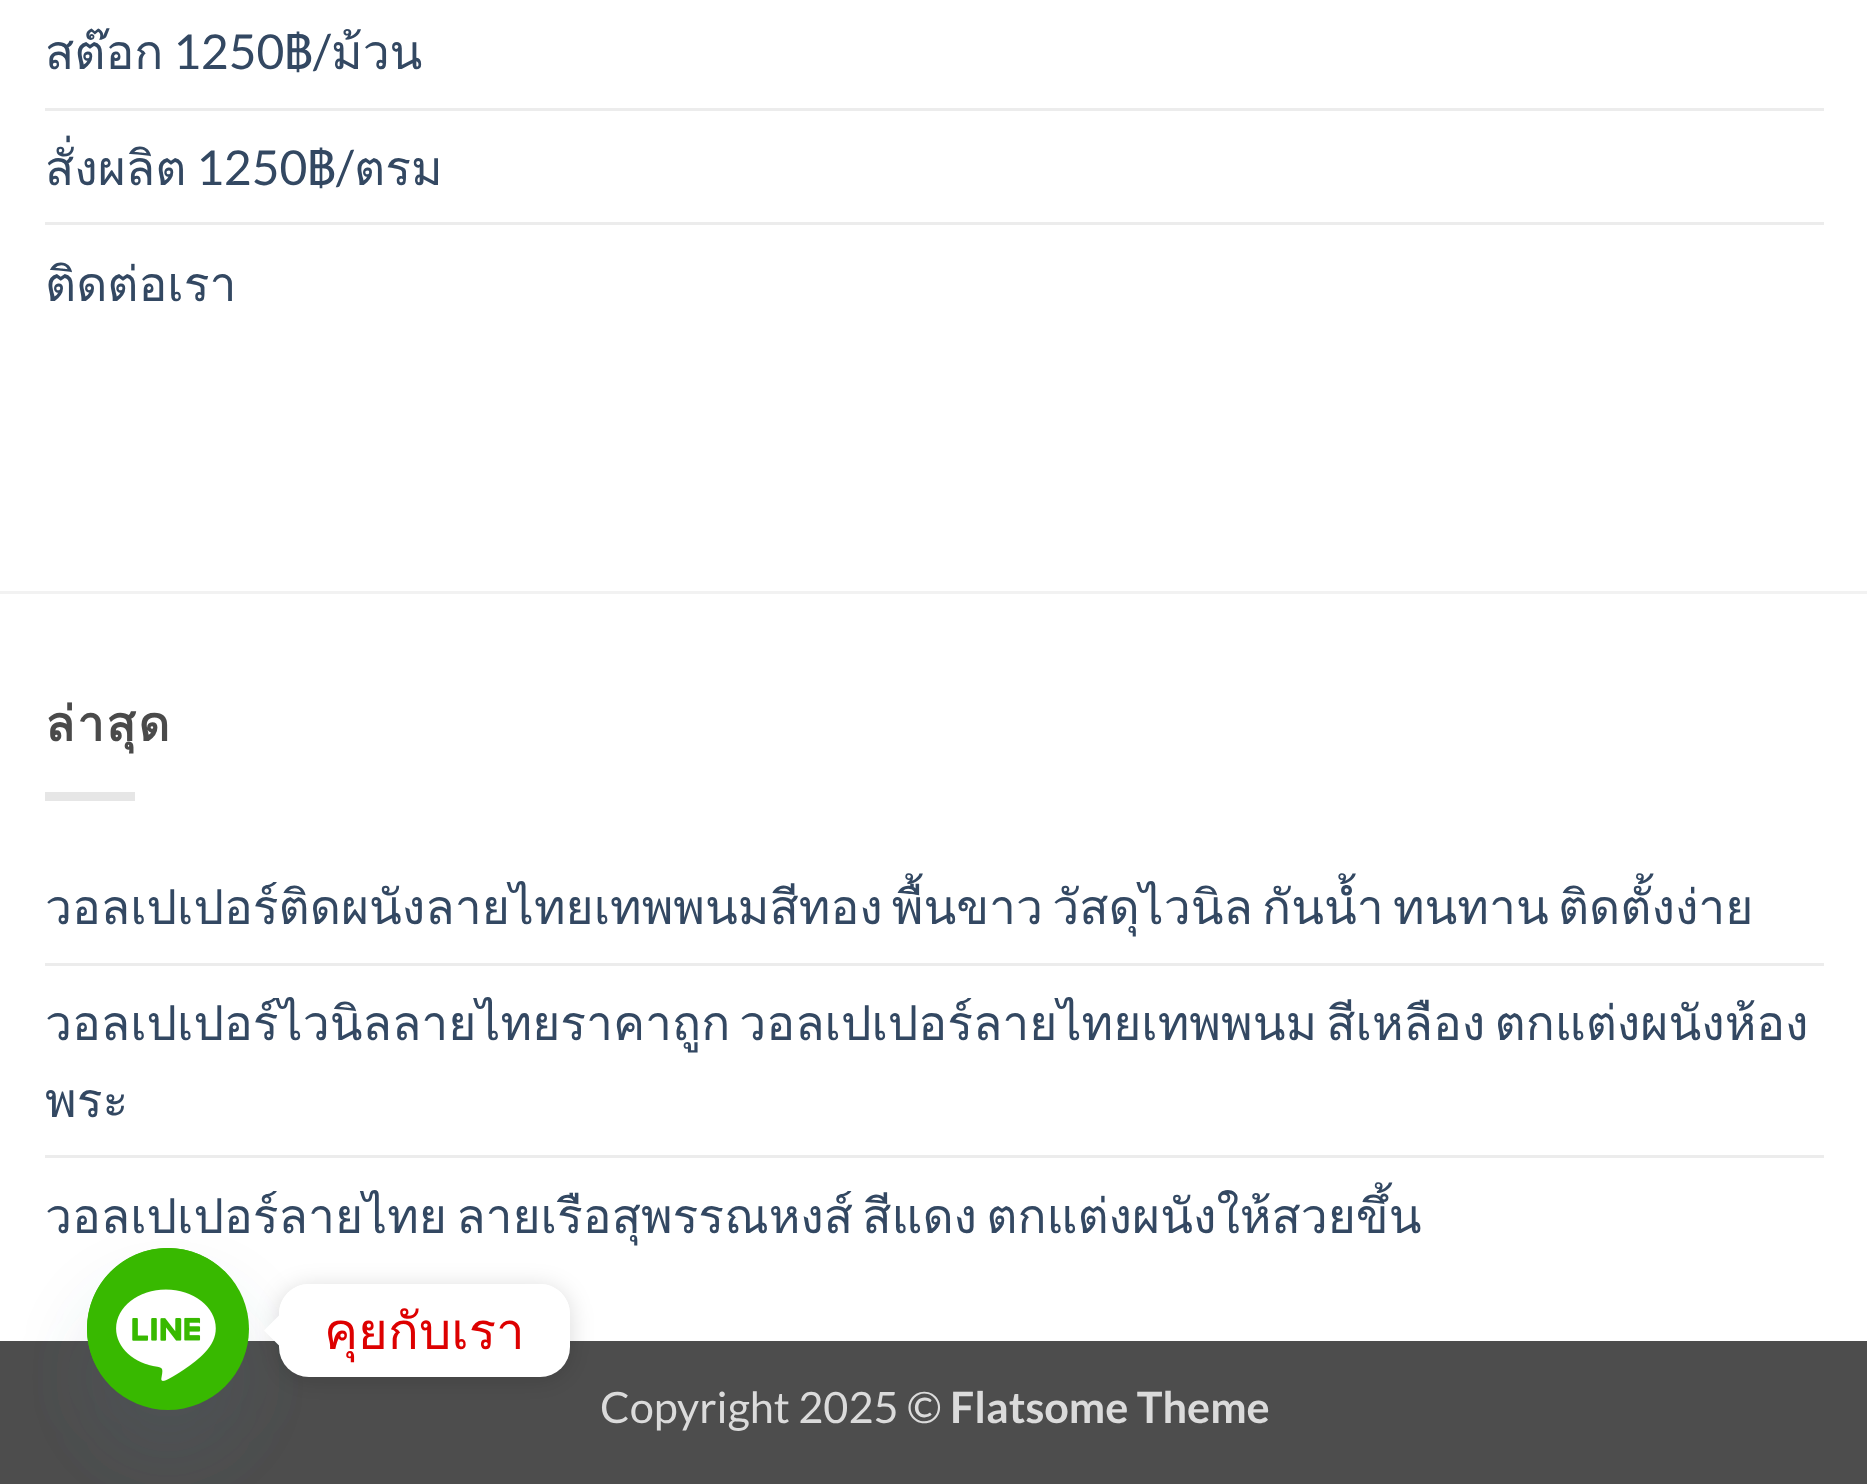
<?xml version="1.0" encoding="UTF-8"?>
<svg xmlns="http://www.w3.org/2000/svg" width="1867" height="1484">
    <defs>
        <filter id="blur1" x="-50%" y="-200%" width="200%" height="500%"><feGaussianBlur stdDeviation="36"/></filter>
        <clipPath id="clip1"><path d="M 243 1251 H 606 V 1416 H 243 Z M 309 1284 H 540 C 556.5 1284 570 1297.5 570 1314 V 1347 C 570 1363.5 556.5 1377 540 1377 H 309 C 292.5 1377 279 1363.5 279 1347 V 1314 C 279 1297.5 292.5 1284 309 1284 Z" clip-rule="evenodd"/></clipPath>
        <filter id="blur2" x="-50%" y="-200%" width="200%" height="500%"><feGaussianBlur stdDeviation="11.5"/></filter>
    </defs>
    <rect width="100%" height="100%" fill="#FFFFFF"/>
    <text x="45" y="69" font-family="Loma" font-size="48" fill="#334862">สต๊อก</text>
    <text x="284" y="69" font-family="Loma" font-size="48" fill="#334862">฿</text>
    <text x="313" y="69" font-family="Lato" font-size="48" fill="#334862">/</text>
    <text x="331" y="69" font-family="Loma" font-size="48" fill="#334862">ม้วน</text>
    <text x="173" y="69" font-family="Lato" font-size="48" fill="#334862">1250</text>
    <rect x="45" y="108" width="1779" height="3" fill="#ECECEC"/>
    <text x="45" y="185" font-family="Loma" font-size="48" fill="#334862">สั่งผลิต</text>
    <text x="196" y="185" font-family="Lato" font-size="48" fill="#334862">1250</text>
    <text x="307" y="185" font-family="Loma" font-size="48" fill="#334862">฿</text>
    <text x="336" y="185" font-family="Lato" font-size="48" fill="#334862">/</text>
    <text x="354" y="185" font-family="Loma" font-size="48" fill="#334862">ตรม</text>
    <rect x="45" y="222" width="1779" height="3" fill="#ECECEC"/>
    <text x="45" y="301" font-family="Loma" font-size="48" fill="#334862">ติดต่อเรา</text>
    <rect x="0" y="591" width="1867" height="3" fill="#F2F2F2"/>
    <text x="45" y="741" font-family="Loma" font-size="48" font-weight="700" letter-spacing="2.5" fill="#4A4A4A">ล่าสุด</text>
    <rect x="45" y="792" width="90" height="9" fill="#E6E6E6"/>
    <text x="45" y="924" word-spacing="-7" font-family="Loma" font-size="48" fill="#334862">วอลเปเปอร์ติดผนังลายไทยเทพพนมสีทอง พื้นขาว วัสดุไวนิล กันน้ำ ทนทาน ติดตั้งง่าย</text>
    <rect x="45" y="963" width="1779" height="3" fill="#ECECEC"/>
    <text font-family="Loma" font-size="48" fill="#334862">
        <tspan x="45" y="1040" word-spacing="-7">วอลเปเปอร์ไวนิลลายไทยราคาถูก วอลเปเปอร์ลายไทยเทพพนม สีเหลือง ตกแต่งผนังห้อง</tspan>
        <tspan x="45" y="1117">พระ</tspan>
    </text>
    <rect x="45" y="1155" width="1779" height="3" fill="#ECECEC"/>
    <text x="45" y="1233" word-spacing="-7" font-family="Loma" font-size="48" fill="#334862">วอลเปเปอร์ลายไทย ลายเรือสุพรรณหงส์ สีแดง ตกแต่งผนังให้สวยขึ้น</text>
    <rect x="0" y="1341" width="1867" height="143" fill="#4D4D4D"/>
    <text x="600" y="1423" font-family="Lato" font-size="43.25" fill="#DBDBDB">Copyright 2025 ©</text>
    <text x="950" y="1423" font-family="Lato" font-size="43.25" font-weight="700" fill="#DBDBDB">Flatsome Theme</text>
    <rect x="87" y="1296" width="162" height="162" rx="81" fill="#49687E" fill-opacity="0.16" filter="url(#blur1)"/>
    <circle cx="168" cy="1329" r="81" fill="#38B900"/>
    <image x="87" y="1248" width="150" height="138" href="img_01.png"/>
    <g clip-path="url(#clip1)">
        <rect x="279" y="1287" width="291" height="93" rx="30" fill="#000000" fill-opacity="0.15" filter="url(#blur2)"/>
    </g>
    <rect x="279" y="1284" width="291" height="93" rx="30" fill="#FFFFFF"/>
    <path d="M 279 1315.5 V 1345.5 L 264 1330.5 Z" fill="#FFFFFF"/>
    <text x="324" y="1349" font-family="Loma" font-size="51" fill="#DD0000">คุยกับเรา</text>
</svg>
